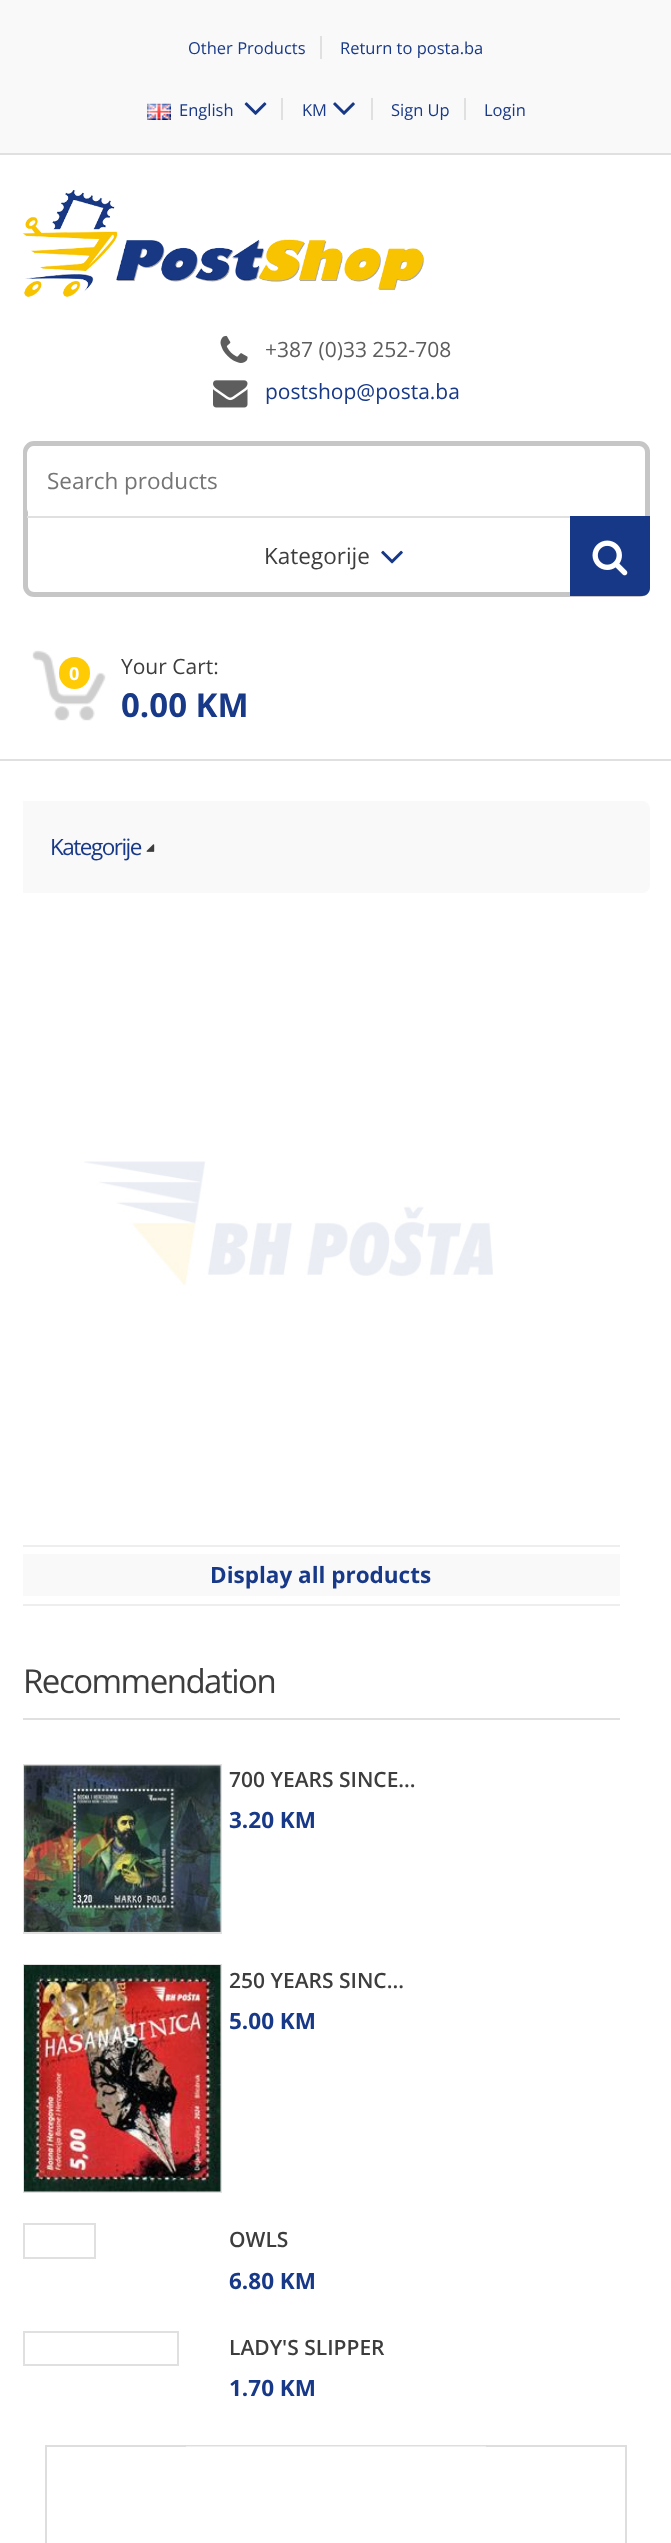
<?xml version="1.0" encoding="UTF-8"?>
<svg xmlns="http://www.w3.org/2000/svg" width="671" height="2543">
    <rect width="100%" height="100%" fill="#FFFFFF"/>
    <rect x="0" y="0" width="671" height="153" fill="#F9F9F9"/>
    <rect x="0" y="153" width="671" height="2" fill="#E0E0E0"/>
    <rect x="320" y="36" width="2" height="23" fill="#E0E0E0"/>
    <text x="188" y="54" font-family="Open Sans" font-size="16.5" fill="#183987">Other Products</text>
    <text x="340" y="54" font-family="Open Sans" font-size="16.5" fill="#183987">Return to posta.ba</text>
    <rect x="281" y="98" width="2" height="22" fill="#E0E0E0"/>
    <image x="147" y="103" width="24" height="17" href="img_01.png"/>
    <text x="179" y="116" font-family="Open Sans" font-size="16.5" fill="#183987">English</text>
    <image x="244" y="102" width="23" height="13" href="img_02.png"/>
    <rect x="371" y="98" width="2" height="22" fill="#E0E0E0"/>
    <text x="302" y="116" font-family="Open Sans" font-size="16.5" fill="#183987">KM</text>
    <image x="333" y="102" width="22" height="13" href="img_03.png"/>
    <rect x="464" y="98" width="2" height="22" fill="#E0E0E0"/>
    <text x="391" y="116" font-family="Open Sans" font-size="16.5" fill="#183987">Sign Up</text>
    <text x="484" y="116" font-family="Open Sans" font-size="16.5" fill="#183987">Login</text>
    <rect x="0" y="759" width="671" height="2" fill="#E0E0E0"/>
    <image x="22" y="190" width="402" height="107" href="img_04.png"/>
    <image x="220" y="335" width="28" height="28" href="img_05.png"/>
    <text x="265" y="357" font-family="Open Sans" font-size="21" fill="#5D5D5D">+387 (0)33 252-708</text>
    <image x="213" y="380" width="35" height="28" href="img_06.png"/>
    <text x="265" y="399" font-family="Open Sans" font-size="21" fill="#183987">postshop@posta.ba</text>
    <rect x="25.5" y="443.5" width="622" height="151" rx="8.5" fill="none" stroke="#C6C6C6" stroke-width="5"/>
    <path d="M 35 446 H 342 V 516 H 35 C 30.5 516 27 512.5 27 508 V 454 C 27 449.5 30.5 446 35 446 Z" fill="#FFFFFF"/>
    <text x="47" y="489" font-family="Open Sans" font-size="22.5" fill="#757575">Search products</text>
    <rect x="27" y="516" width="543" height="2" fill="#E0E0E0"/>
    <text x="264" y="564" font-family="Open Sans" font-size="22.5" fill="#3D3D3D">Kategorije</text>
    <image x="381" y="550" width="22" height="14" href="img_07.png"/>
    <path d="M 570 516 H 650 V 588 C 650 592.5 646.5 596 642 596 H 570 Z" fill="#173887"/>
    <image x="592" y="540" width="36" height="36" href="img_08.png"/>
    <image x="32" y="650" width="74" height="71" href="img_09.png"/>
    <rect x="59" y="657" width="31" height="32" rx="15.5" fill="#FFCB05"/>
    <text x="69" y="680" font-family="Open Sans" font-size="18" font-weight="700" fill="#FFFFFF">0</text>
    <text x="121" y="674" font-family="Open Sans" font-size="21" fill="#3D3D3D">Your Cart:</text>
    <text x="121" y="717" font-family="Open Sans" font-size="33" font-weight="700" fill="#183987">0.00 KM</text>
    <rect x="23" y="801" width="627" height="92" rx="8" fill="#F9F9F9"/>
    <rect x="23" y="801" width="6" height="92" fill="#F9F9F9"/>
    <text x="50" y="855" font-family="Open Sans" font-size="22.5" letter-spacing="-1.5" fill="#183987">Kategorije</text>
    <image x="146" y="844" width="9" height="8" href="img_10.png"/>
    <image x="84" y="1161" width="409" height="124" href="img_11.png"/>
    <rect x="23" y="1545" width="597" height="2" fill="#EEEEEE"/>
    <rect x="23" y="1554" width="597" height="42" fill="#F9F9F9"/>
    <text x="210" y="1583" font-family="Open Sans" font-size="22.5" font-weight="700" fill="#183987">Display all products</text>
    <rect x="23" y="1604" width="597" height="2" fill="#EEEEEE"/>
    <rect x="23" y="1718" width="597" height="2" fill="#E0E0E0"/>
    <text x="23" y="1693" font-family="Open Sans" font-size="33" letter-spacing="-1.5" fill="#3D3D3D">Recommendation</text>
    <rect x="24" y="1765" width="197" height="168" fill="none" stroke="#E0E0E0" stroke-width="2"/>
    <image x="24" y="1765" width="197" height="167" href="img_12.png"/>
    <text x="229" y="1787" font-family="Open Sans" font-size="21" font-weight="600" fill="#3D3D3D">700 YEARS SINCE...</text>
    <text x="229" y="1828" font-family="Open Sans" font-size="22.5" font-weight="700" fill="#183987">3.20 KM</text>
    <rect x="24" y="1965" width="197" height="227" fill="none" stroke="#E0E0E0" stroke-width="2"/>
    <image x="24" y="1965" width="197" height="227" href="img_13.png"/>
    <text x="229" y="1988" font-family="Open Sans" font-size="21" font-weight="600" fill="#3D3D3D">250 YEARS SINC...</text>
    <text x="229" y="2029" font-family="Open Sans" font-size="22.5" font-weight="700" fill="#183987">5.00 KM</text>
    <rect x="24" y="2224" width="71" height="34" fill="none" stroke="#E0E0E0" stroke-width="2"/>
    <text x="229" y="2247" font-family="Open Sans" font-size="21" font-weight="600" fill="#3D3D3D">OWLS</text>
    <text x="229" y="2289" font-family="Open Sans" font-size="22.5" font-weight="700" fill="#183987">6.80 KM</text>
    <rect x="24" y="2332" width="154" height="33" fill="none" stroke="#E0E0E0" stroke-width="2"/>
    <text x="229" y="2355" font-family="Open Sans" font-size="21" font-weight="600" fill="#3D3D3D">LADY'S SLIPPER</text>
    <text x="229" y="2396" font-family="Open Sans" font-size="22.5" font-weight="700" fill="#183987">1.70 KM</text>
    <rect x="46" y="2446" width="580" height="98" fill="none" stroke="#DEDEDE" stroke-width="2"/>
    <rect x="186" y="2446" width="300" height="1" fill="#EFEFEF"/>
</svg>
